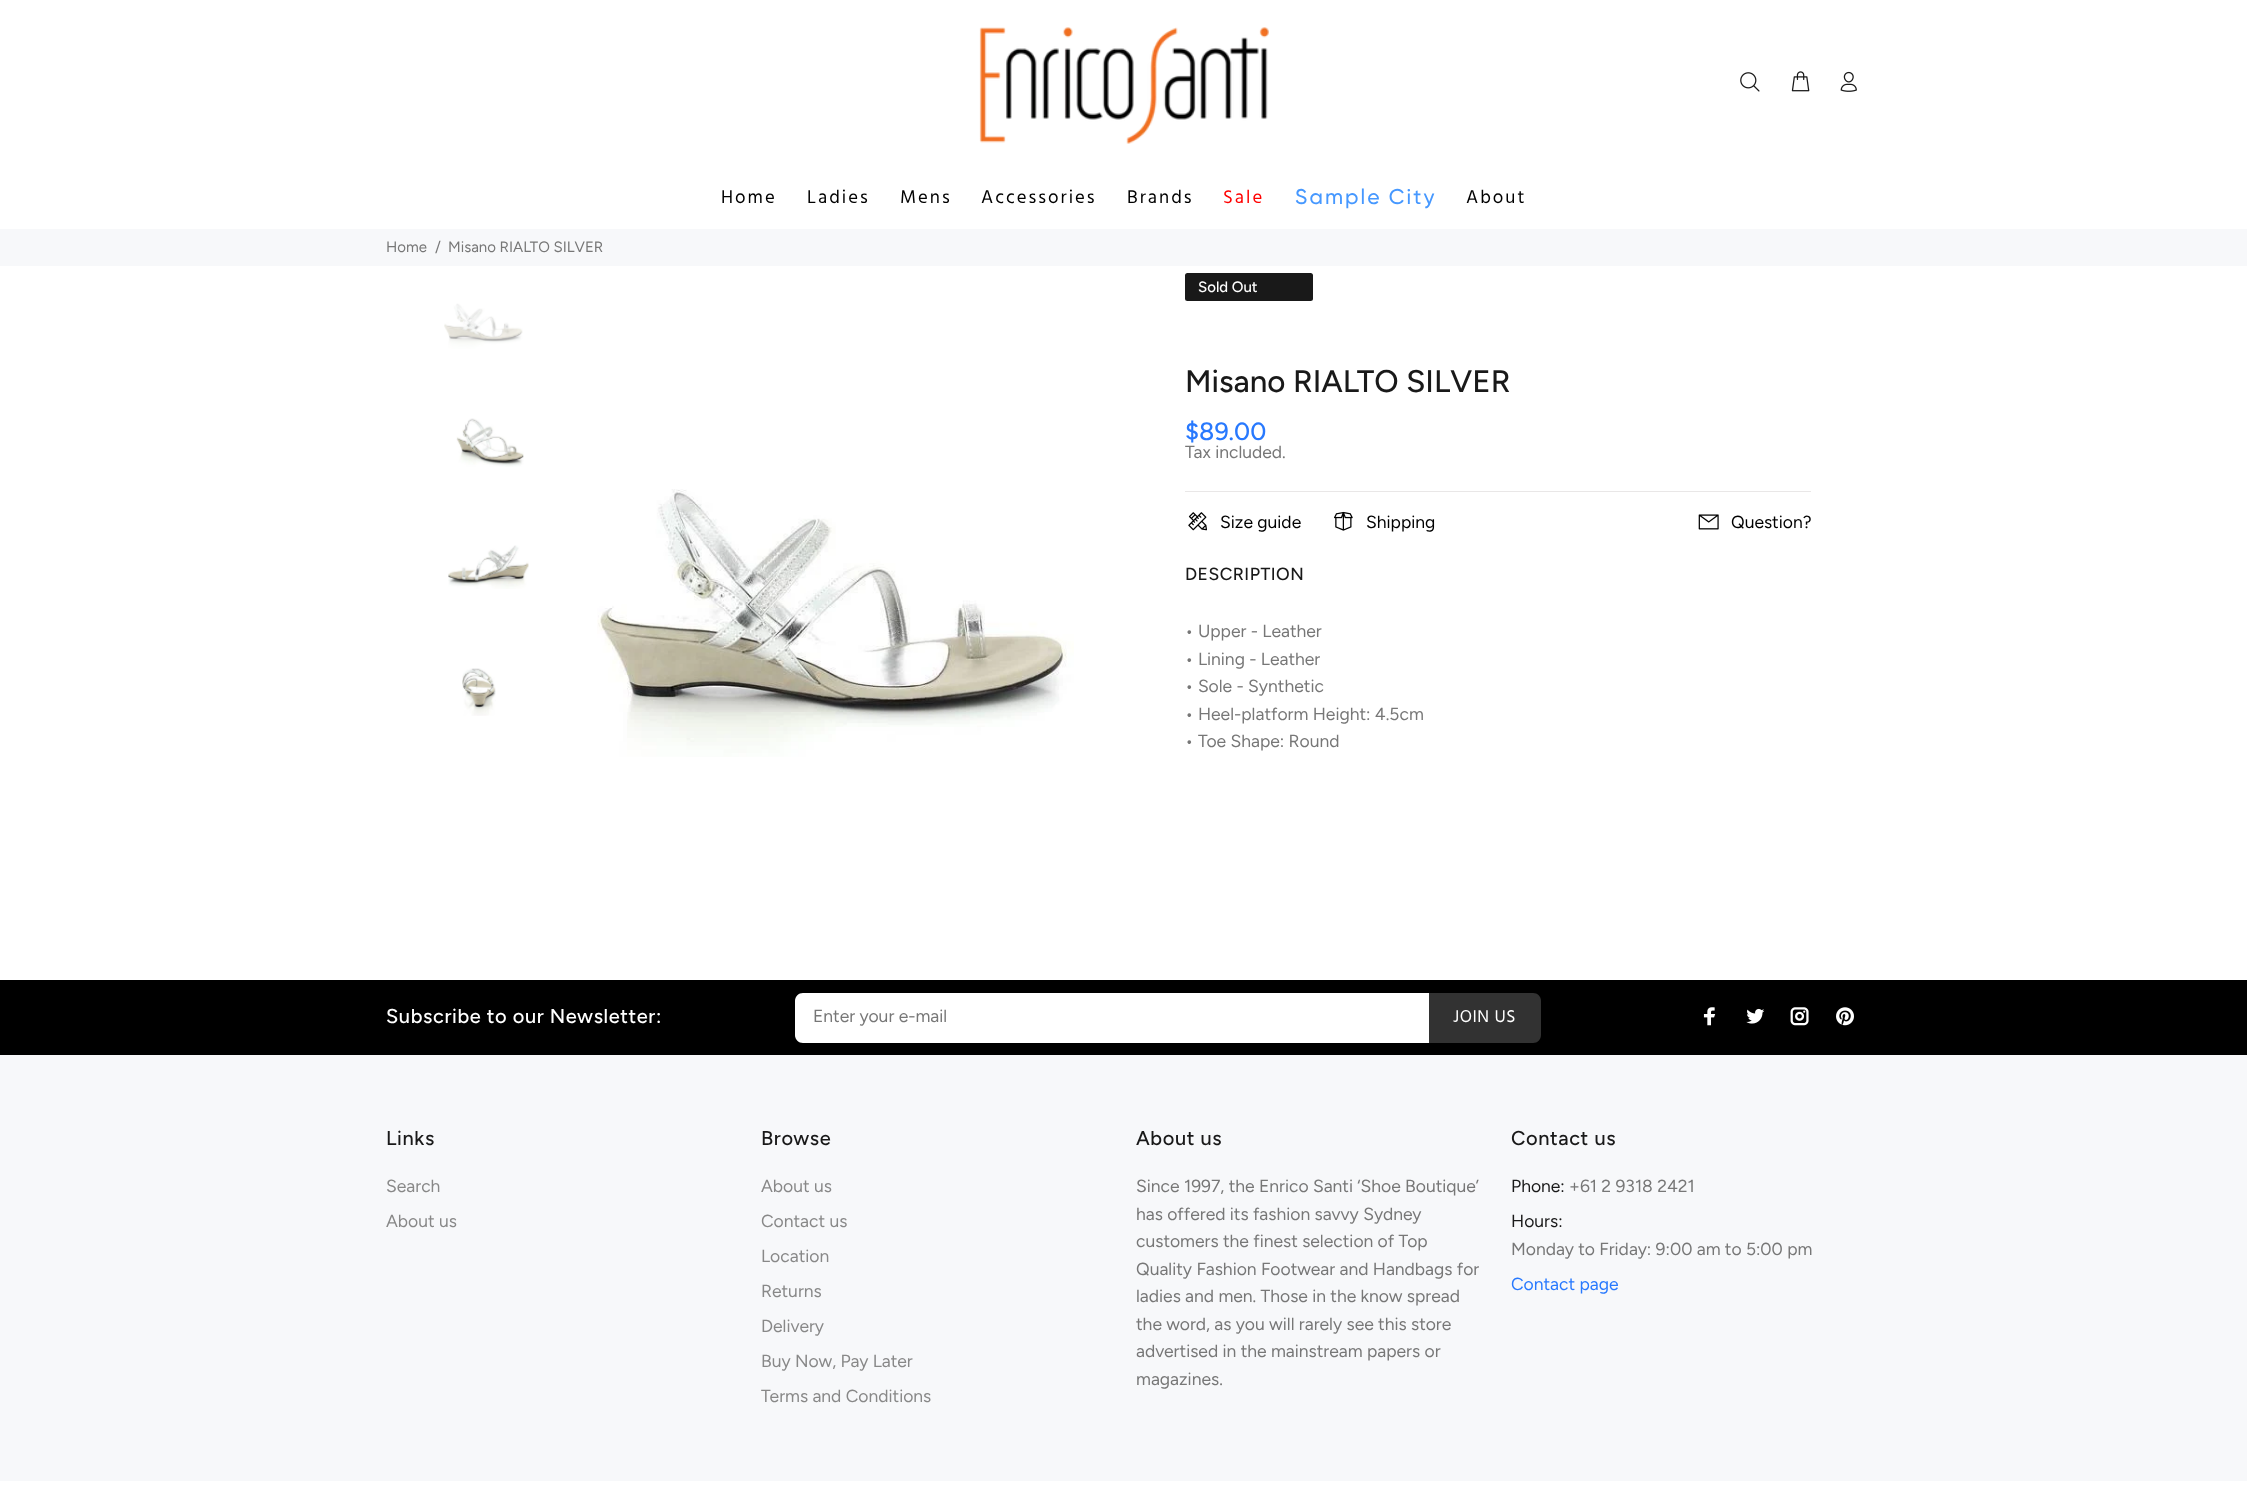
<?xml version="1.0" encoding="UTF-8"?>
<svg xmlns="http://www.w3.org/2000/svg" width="2247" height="1507">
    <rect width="100%" height="100%" fill="#FFFFFF"/>
    <image x="979" y="27" width="290" height="117" href="img_01.png"/>
    <image x="1740" y="72" width="20" height="20" href="img_02.png"/>
    <image x="1791" y="71" width="19" height="21" href="img_03.png"/>
    <image x="1840" y="71" width="17" height="21" href="img_04.png"/>
    <text x="721" y="203" font-family="Hind" font-size="18.75" letter-spacing="2" fill="#000000">Home</text>
    <text x="807" y="203" font-family="Hind" font-size="18.75" letter-spacing="2" fill="#000000">Ladies</text>
    <text x="900" y="203" font-family="Hind" font-size="18.75" letter-spacing="2" fill="#000000">Mens</text>
    <text x="981" y="203" font-family="Hind" font-size="18.75" letter-spacing="2" fill="#000000">Accessories</text>
    <text x="1127" y="203" font-family="Hind" font-size="18.75" letter-spacing="2" fill="#000000">Brands</text>
    <text x="1223" y="203" font-family="Hind" font-size="18.75" letter-spacing="2" fill="#FF0000">Sale</text>
    <text x="1295" y="204" font-family="Gilroy" font-size="21.25" font-weight="500" letter-spacing="2" fill="#4698FF">Sample City</text>
    <text x="1466" y="203" font-family="Hind" font-size="18.75" letter-spacing="2" fill="#000000">About</text>
    <rect x="0" y="229" width="2247" height="37" fill="#F7F8FA"/>
    <text x="386" y="252" font-family="Figtree" font-size="15" fill="#777777">Home</text>
    <text x="435" y="252" font-family="Figtree" font-size="15" fill="#777777">/</text>
    <text x="448" y="252" font-family="Figtree" font-size="15" fill="#777777">Misano RIALTO SILVER</text>
    <image x="444" y="303" width="79" height="46" href="img_05.png"/>
    <image x="456" y="418" width="68" height="49" href="img_06.png"/>
    <image x="448" y="545" width="81" height="44" href="img_07.png"/>
    <image x="462" y="668" width="34" height="48" href="img_08.png"/>
    <image x="597" y="489" width="477" height="268" href="img_09.png"/>
    <rect x="1185" y="273" width="128" height="28" rx="2.5" fill="#191919"/>
    <text x="1198" y="292" font-family="Figtree" font-size="15" font-weight="500" fill="#FFFFFF">Sold Out</text>
    <text x="1185" y="392" font-family="Figtree" font-size="31.25" font-weight="500" fill="#191919">Misano RIALTO SILVER</text>
    <text x="1185" y="440" font-family="Figtree" font-size="25" font-weight="500" fill="#2879FE">$89.00</text>
    <text x="1185" y="458" font-family="Figtree" font-size="17.5" fill="#777777">Tax included.</text>
    <rect x="1185" y="491" width="626" height="1" fill="#E9E7E7"/>
    <image x="1188" y="512" width="19" height="19" href="img_10.png"/>
    <text x="1220" y="528" font-family="Figtree" font-size="17.5" fill="#000000">Size guide</text>
    <image x="1334" y="511" width="19" height="20" href="img_11.png"/>
    <text x="1366" y="528" font-family="Figtree" font-size="17.5" fill="#000000">Shipping</text>
    <image x="1698" y="514" width="21" height="16" href="img_12.png"/>
    <text x="1731" y="528" font-family="Figtree" font-size="17.5" fill="#000000">Question?</text>
    <text x="1185" y="580" font-family="Figtree" font-size="17.5" font-weight="500" letter-spacing="0.5" fill="#191919">DESCRIPTION</text>
    <text font-family="Figtree" font-size="17.5" fill="#777777">
        <tspan x="1185" y="637">• Upper - Leather</tspan>
        <tspan x="1185" y="665">• Lining - Leather</tspan>
        <tspan x="1185" y="692">• Sole - Synthetic</tspan>
        <tspan x="1185" y="720">• Heel-platform Height: 4.5cm</tspan>
        <tspan x="1185" y="747">• Toe Shape: Round</tspan>
    </text>
    <rect x="0" y="1055" width="2247" height="426" fill="#F7F8FA"/>
    <rect x="0" y="980" width="2247" height="75" fill="#000000"/>
    <text x="386" y="1023" font-family="Figtree" font-size="20" font-weight="500" letter-spacing="0.6" fill="#FFFFFF">Subscribe to our Newsletter:</text>
    <path d="M 803 993 H 1429 V 1043 H 803 C 798.5 1043 795 1039.5 795 1035 V 1001 C 795 996.5 798.5 993 803 993 Z" fill="#FFFFFF"/>
    <text x="813" y="1022" font-family="Figtree" font-size="17.5" fill="#777777">Enter your e-mail</text>
    <path d="M 1429 993 H 1533 C 1537.5 993 1541 996.5 1541 1001 V 1035 C 1541 1039.5 1537.5 1043 1533 1043 H 1429 Z" fill="#323232"/>
    <text x="1453" y="1022" font-family="Hind" font-size="17.5" letter-spacing="0.5" fill="#FFFFFF">JOIN US</text>
    <image x="1703" y="1007" width="13" height="19" href="img_13.png"/>
    <image x="1746" y="1008" width="19" height="16" href="img_14.png"/>
    <image x="1790" y="1007" width="19" height="19" href="img_15.png"/>
    <image x="1836" y="1007" width="18" height="19" href="img_16.png"/>
    <text x="386" y="1145" font-family="Figtree" font-size="20" font-weight="500" letter-spacing="0.6" fill="#191919">Links</text>
    <text x="386" y="1192" font-family="Figtree" font-size="17.5" fill="#888888">Search</text>
    <text x="386" y="1227" font-family="Figtree" font-size="17.5" fill="#888888">About us</text>
    <text x="761" y="1145" font-family="Figtree" font-size="20" font-weight="500" letter-spacing="0.6" fill="#191919">Browse</text>
    <text x="761" y="1192" font-family="Figtree" font-size="17.5" fill="#888888">About us</text>
    <text x="761" y="1227" font-family="Figtree" font-size="17.5" fill="#888888">Contact us</text>
    <text x="761" y="1262" font-family="Figtree" font-size="17.5" fill="#888888">Location</text>
    <text x="761" y="1297" font-family="Figtree" font-size="17.5" fill="#888888">Returns</text>
    <text x="761" y="1332" font-family="Figtree" font-size="17.5" fill="#888888">Delivery</text>
    <text x="761" y="1367" font-family="Figtree" font-size="17.5" fill="#888888">Buy Now, Pay Later</text>
    <text x="761" y="1402" font-family="Figtree" font-size="17.5" fill="#888888">Terms and Conditions</text>
    <text x="1136" y="1145" font-family="Figtree" font-size="20" font-weight="500" letter-spacing="0.6" fill="#191919">About us</text>
    <text font-family="Figtree" font-size="17.5" fill="#777777">
        <tspan x="1136" y="1192">Since 1997, the Enrico Santi ‘Shoe Boutique’</tspan>
        <tspan x="1136" y="1220">has offered its fashion savvy Sydney</tspan>
        <tspan x="1136" y="1247">customers the finest selection of Top</tspan>
        <tspan x="1136" y="1275">Quality Fashion Footwear and Handbags for</tspan>
        <tspan x="1136" y="1302">ladies and men. Those in the know spread</tspan>
        <tspan x="1136" y="1330">the word, as you will rarely see this store</tspan>
        <tspan x="1136" y="1357">advertised in the mainstream papers or</tspan>
        <tspan x="1136" y="1385">magazines.</tspan>
    </text>
    <text x="1511" y="1145" font-family="Figtree" font-size="20" font-weight="500" letter-spacing="0.6" fill="#191919">Contact us</text>
    <text x="1511" y="1192" font-family="Figtree" font-size="17.5" fill="#191919">Phone:</text>
    <text x="1569" y="1192" font-family="Figtree" font-size="17.5" fill="#777777">+61 2 9318 2421</text>
    <text x="1511" y="1227" font-family="Figtree" font-size="17.5" fill="#191919">Hours:</text>
    <text x="1511" y="1255" font-family="Figtree" font-size="17.5" fill="#777777">Monday to Friday: 9:00 am to 5:00 pm</text>
    <text x="1511" y="1290" font-family="Figtree" font-size="17.5" fill="#2879FE">Contact page</text>
</svg>
